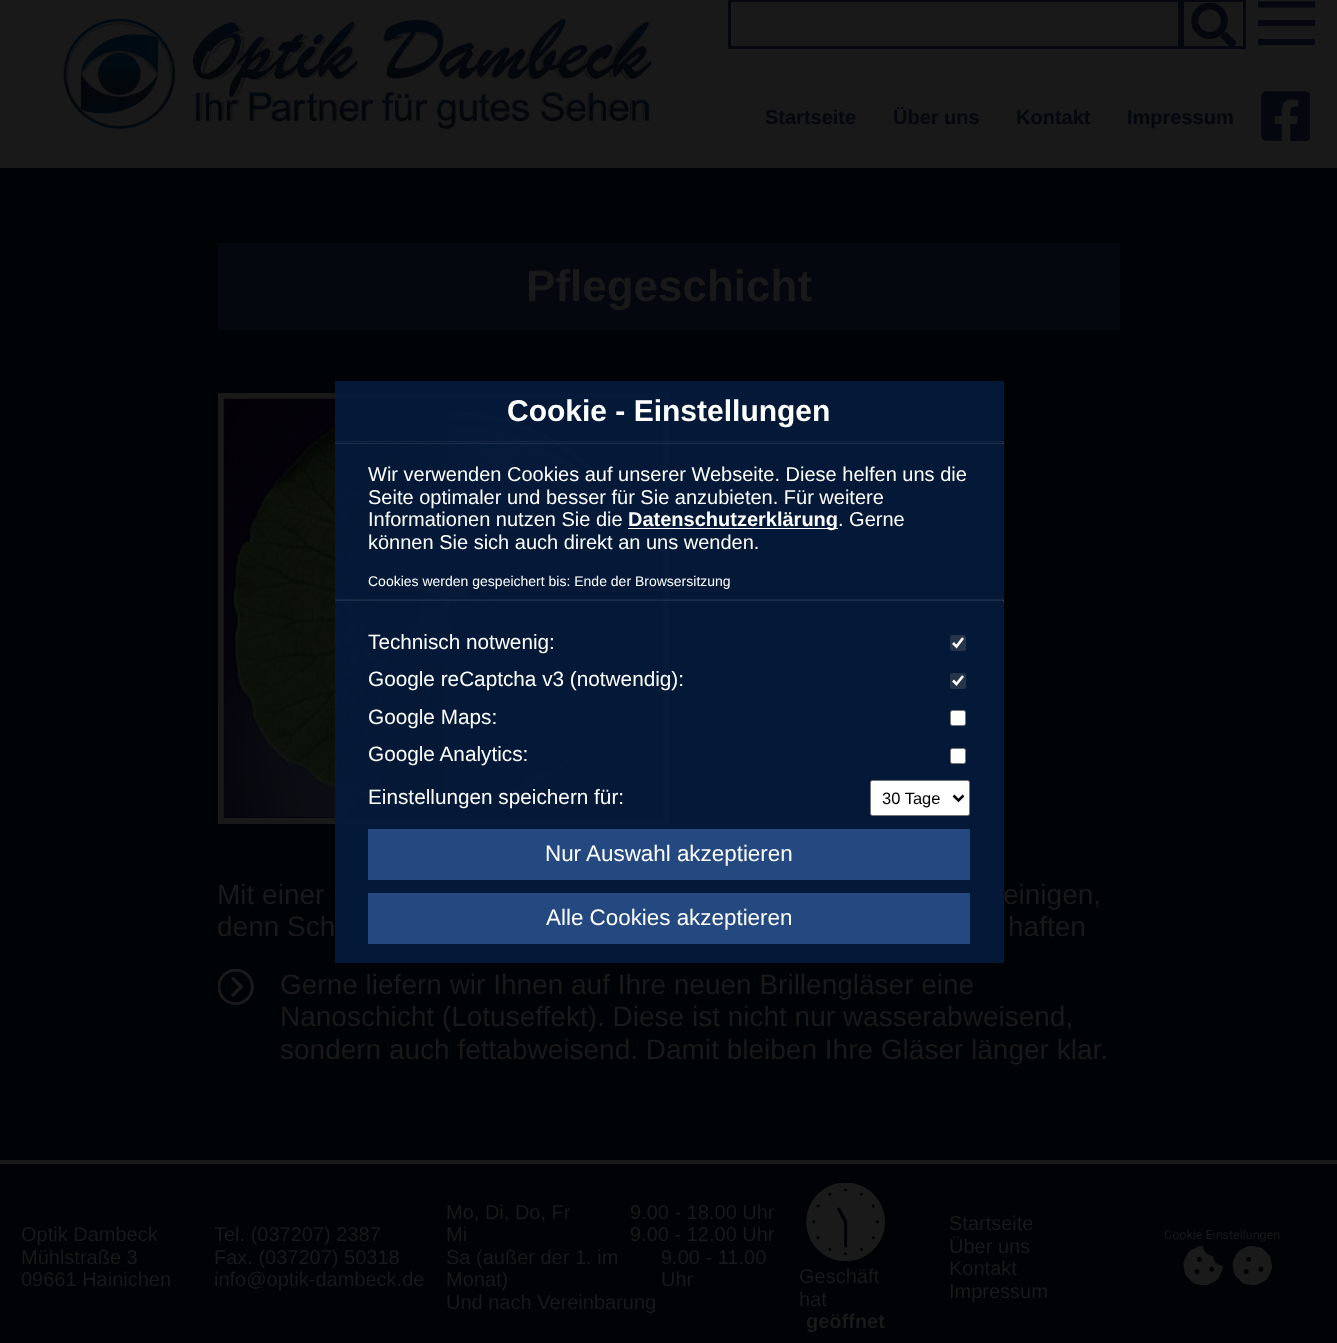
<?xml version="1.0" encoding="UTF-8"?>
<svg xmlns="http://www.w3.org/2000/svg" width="1337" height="1343">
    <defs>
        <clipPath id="clip1"><rect x="1258" y="1" width="57" height="44"/></clipPath>
    </defs>
    <rect width="100%" height="100%" fill="#191919"/>
    <rect x="0" y="168" width="1337" height="992" fill="#000306"/>
    <image x="63" y="18" width="589" height="111" href="img_01.png"/>
    <rect x="729.5" y="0.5" width="450" height="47" fill="none" stroke="#04070D" stroke-width="3"/>
    <rect x="1182.5" y="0.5" width="62" height="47" fill="none" stroke="#04070D" stroke-width="3"/>
    <image x="1191" y="3" width="45" height="43" href="img_02.png"/>
    <text x="765" y="124" font-family="Liberation Sans" font-size="20" font-weight="700" fill="#04070D">Startseite</text>
    <text x="893" y="124" font-family="Liberation Sans" font-size="20" font-weight="700" fill="#04070D">Über uns</text>
    <text x="1016" y="124" font-family="Liberation Sans" font-size="20" font-weight="700" fill="#04070D">Kontakt</text>
    <text x="1127" y="124" font-family="Liberation Sans" font-size="20" font-weight="700" fill="#04070D">Impressum</text>
    <g clip-path="url(#clip1)">
        <path d="M 1257.5 4.5 H 1315" fill="none" stroke="#04070D" stroke-width="6.2"/>
    </g>
    <rect x="1258" y="20" width="57" height="6" fill="#04070D"/>
    <rect x="1258" y="39" width="57" height="6" fill="#04070D"/>
    <image x="1261" y="91" width="49" height="50" href="img_03.png"/>
    <rect x="221" y="396" width="445" height="425" fill="none" stroke="#191919" stroke-width="6"/>
    <image x="223" y="398" width="440" height="420" href="img_04.png"/>
    <rect x="335" y="381" width="669" height="582" fill="#041B3D" fill-opacity="0.9"/>
    <text x="507" y="421" font-family="Liberation Sans" font-size="30" font-weight="700" fill="#FFFFFF">Cookie - Einstellungen</text>
    <rect x="335" y="441" width="669" height="1" fill="#9F9F9F" fill-opacity="0.1"/>
    <rect x="1003" y="441" width="1" height="3" fill="#1B2E4A"/>
    <rect x="335" y="443" width="669" height="1" fill="#EEEEEE" fill-opacity="0.1"/>
    <rect x="335" y="441" width="1" height="3" fill="#142742"/>
    <text font-family="Liberation Sans" font-size="20" fill="#FFFFFF">
        <tspan x="368" y="481">Wir verwenden Cookies auf unserer Webseite. Diese helfen uns die</tspan>
        <tspan x="368" y="504">Seite optimaler und besser für Sie anzubieten. Für weitere</tspan>
        <tspan x="368" y="526">Informationen nutzen Sie die</tspan>
    </text>
    <rect x="628" y="528" width="210" height="1" fill="#FFFFFF"/>
    <text x="628" y="526" font-family="Liberation Sans" font-size="20" font-weight="700" fill="#FFFFFF">Datenschutzerklärung</text>
    <text x="838" y="526" font-family="Liberation Sans" font-size="20" fill="#FFFFFF">. Gerne</text>
    <text x="368" y="549" font-family="Liberation Sans" font-size="20" fill="#FFFFFF">können Sie sich auch direkt an uns wenden.</text>
    <text x="368" y="586" font-family="Liberation Sans" font-size="14" fill="#FFFFFF">Cookies werden gespeichert bis: Ende der Browsersitzung</text>
    <rect x="335" y="599" width="669" height="1" fill="#9F9F9F" fill-opacity="0.1"/>
    <rect x="1003" y="599" width="1" height="3" fill="#1B2E4A"/>
    <rect x="335" y="600" width="669" height="1" fill="#EEEEEE" fill-opacity="0.1"/>
    <rect x="335" y="599" width="1" height="3" fill="#142742"/>
    <text x="368" y="649" font-family="Liberation Sans" font-size="20.75" fill="#FFFFFF">Technisch notwenig:</text>
    <rect x="950" y="635" width="16" height="16" rx="2.5" fill="#26354A"/>
    <path d="M 953 643 L 956.5 646.5 L 963 638" fill="none" stroke="#FFFFFF" stroke-width="2.6"/>
    <text x="368" y="686" font-family="Liberation Sans" font-size="20.75" fill="#FFFFFF">Google reCaptcha v3 (notwendig):</text>
    <rect x="950" y="673" width="16" height="16" rx="2.5" fill="#26354A"/>
    <path d="M 953 680.5 L 956.5 684 L 963 676" fill="none" stroke="#FFFFFF" stroke-width="2.6"/>
    <text x="368" y="724" font-family="Liberation Sans" font-size="20.75" fill="#FFFFFF">Google Maps:</text>
    <rect x="950.5" y="710.5" width="15" height="15" rx="2" fill="#FFFFFF" stroke="#767676"/>
    <text x="368" y="761" font-family="Liberation Sans" font-size="20.75" fill="#FFFFFF">Google Analytics:</text>
    <rect x="950.5" y="748.5" width="15" height="15" rx="2" fill="#FFFFFF" stroke="#767676"/>
    <text x="368" y="804" font-family="Liberation Sans" font-size="20.75" fill="#FFFFFF">Einstellungen speichern für:</text>
    <rect x="870.5" y="780.5" width="99" height="35" rx="2" fill="#FFFFFF" stroke="#767676"/>
    <path d="M 953.5 795.5 L 958.5 800.5 L 963.5 795.5" fill="none" stroke="#000000" stroke-width="2.5"/>
    <text x="882" y="804" font-family="Liberation Sans" font-size="16.5" fill="#000000">30 Tage</text>
    <rect x="368" y="829" width="602" height="51" fill="#244980"/>
    <text x="545" y="861" font-family="Liberation Sans" font-size="22.4" fill="#FFFFFF">Nur Auswahl akzeptieren</text>
    <rect x="368" y="893" width="602" height="51" fill="#244980"/>
    <text x="546" y="925" font-family="Liberation Sans" font-size="22.4" fill="#FFFFFF">Alle Cookies akzeptieren</text>
    <rect x="218" y="243" width="902" height="87" fill="#04070D"/>
    <text x="526" y="301" font-family="Liberation Sans" font-size="44" font-weight="700" fill="#191919">Pflegeschicht</text>
    <text x="217" y="904" font-family="Liberation Sans" font-size="28" fill="#191919">Mit einer</text>
    <text x="1003" y="904" font-family="Liberation Sans" font-size="28" fill="#191919">einigen,</text>
    <text x="217" y="936" font-family="Liberation Sans" font-size="28" fill="#191919">denn Sch</text>
    <text x="1008" y="936" font-family="Liberation Sans" font-size="28" fill="#191919">haften</text>
    <image x="218" y="969" width="36" height="36" href="img_05.png"/>
    <text font-family="Liberation Sans" font-size="28" fill="#191919">
        <tspan x="280" y="994">Gerne liefern wir Ihnen auf Ihre neuen Brillengläser eine</tspan>
        <tspan x="280" y="1026">Nanoschicht (Lotuseffekt). Diese ist nicht nur wasserabweisend,</tspan>
        <tspan x="280" y="1059">sondern auch fettabweisend. Damit bleiben Ihre Gläser länger klar.</tspan>
    </text>
    <rect x="0" y="1164" width="1337" height="179" fill="#000205"/>
    <text font-family="Liberation Sans" font-size="20" fill="#191919">
        <tspan x="21" y="1241">Optik Dambeck</tspan>
        <tspan x="21" y="1264">Mühlstraße 3</tspan>
        <tspan x="21" y="1286">09661 Hainichen</tspan>
    </text>
    <text font-family="Liberation Sans" font-size="20" fill="#191919">
        <tspan x="214" y="1241">Tel. (037207) 2387</tspan>
        <tspan x="214" y="1264">Fax. (037207) 50318</tspan>
        <tspan x="214" y="1286">info@optik-dambeck.de</tspan>
    </text>
    <text x="446" y="1219" font-family="Liberation Sans" font-size="20" fill="#191919">Mo, Di, Do, Fr</text>
    <text x="630" y="1219" font-family="Liberation Sans" font-size="20" fill="#191919">9.00 - 18.00 Uhr</text>
    <text x="446" y="1241" font-family="Liberation Sans" font-size="20" fill="#191919">Mi</text>
    <text x="630" y="1241" font-family="Liberation Sans" font-size="20" fill="#191919">9.00 - 12.00 Uhr</text>
    <text font-family="Liberation Sans" font-size="20" fill="#191919">
        <tspan x="446" y="1264">Sa (außer der 1. im</tspan>
        <tspan x="446" y="1286">Monat)</tspan>
    </text>
    <text font-family="Liberation Sans" font-size="20" fill="#191919">
        <tspan x="661" y="1264">9.00 - 11.00</tspan>
        <tspan x="661" y="1286">Uhr</tspan>
    </text>
    <text x="446" y="1309" font-family="Liberation Sans" font-size="20" fill="#191919">Und nach Vereinbarung</text>
    <image x="806" y="1183" width="79" height="78" href="img_06.png"/>
    <text font-family="Liberation Sans" font-size="20" fill="#191919">
        <tspan x="799" y="1283">Geschäft</tspan>
        <tspan x="799" y="1306">hat</tspan>
    </text>
    <text x="806" y="1328" font-family="Liberation Sans" font-size="20" font-weight="700" fill="#191919">geöffnet</text>
    <text font-family="Liberation Sans" font-size="20" fill="#191919">
        <tspan x="949" y="1230">Startseite</tspan>
        <tspan x="949" y="1253">Über uns</tspan>
        <tspan x="949" y="1275">Kontakt</tspan>
        <tspan x="949" y="1298">Impressum</tspan>
    </text>
    <text x="1164" y="1239" font-family="Roboto" font-size="12.5" fill="#191919">Cookie Einstellungen</text>
    <image x="1183" y="1245" width="89" height="40" href="img_07.png"/>
</svg>
